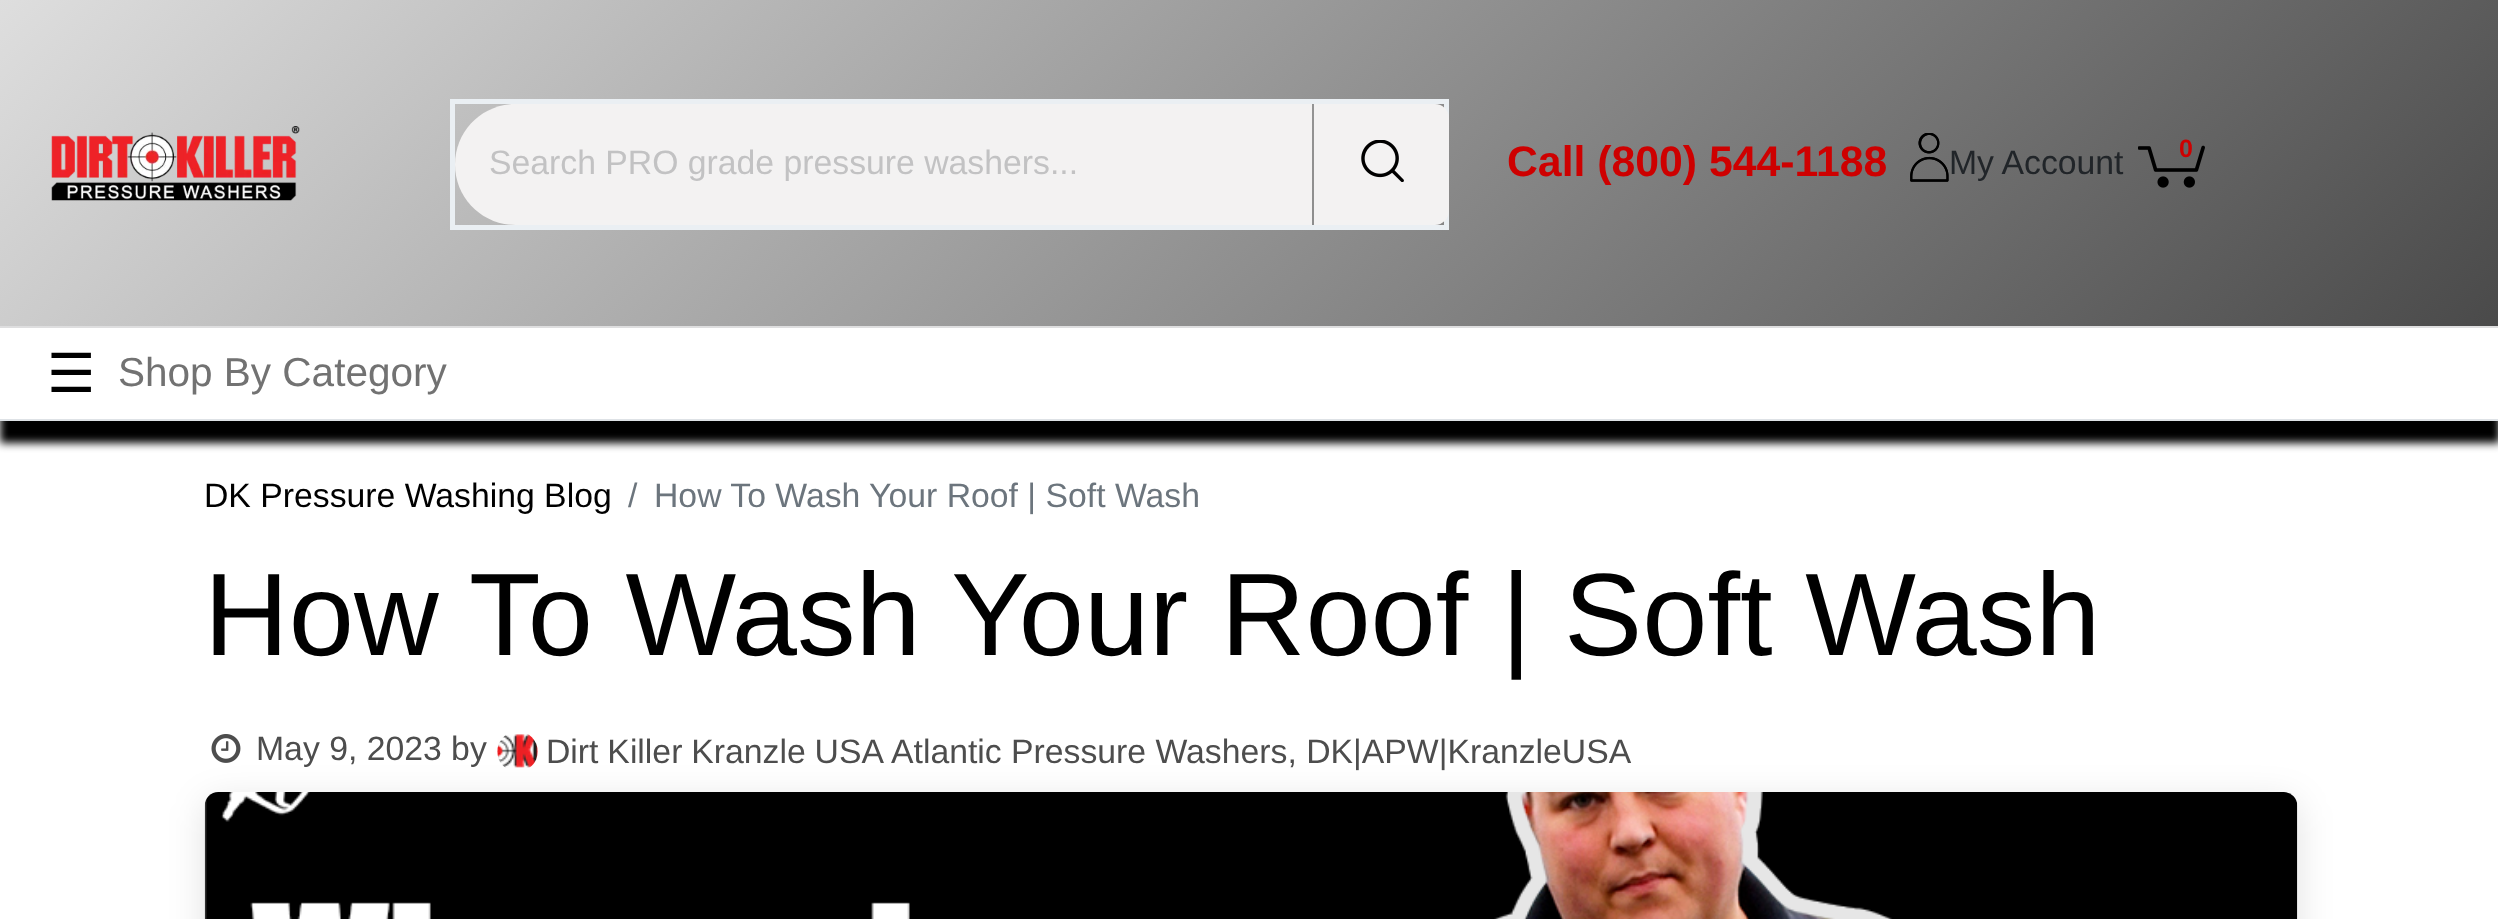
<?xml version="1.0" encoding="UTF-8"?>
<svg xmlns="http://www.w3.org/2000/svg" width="2498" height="919">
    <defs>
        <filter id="blur1" x="-50%" y="-200%" width="200%" height="500%"><feGaussianBlur stdDeviation="4.5"/></filter>
        <linearGradient id="g1" gradientUnits="userSpaceOnUse" x1="520" y1="-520" x2="1980" y2="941"><stop offset="0" stop-color="#DEDEDE"/><stop offset="1" stop-color="#454545"/></linearGradient>
        <clipPath id="clip1"><path d="M 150 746 H 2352 V 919 H 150 Z M 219 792 H 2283 C 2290.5 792 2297 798.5 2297 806 V 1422 C 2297 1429.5 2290.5 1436 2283 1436 H 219 C 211.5 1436 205 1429.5 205 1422 V 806 C 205 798.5 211.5 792 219 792 Z" clip-rule="evenodd"/></clipPath>
        <filter id="blur2" x="-50%" y="-200%" width="200%" height="500%"><feGaussianBlur stdDeviation="18"/></filter>
    </defs>
    <rect width="100%" height="100%" fill="#FFFFFF"/>
    <rect x="0" y="23" width="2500" height="420" fill="#000000" filter="url(#blur1)"/>
    <rect x="0" y="0" width="2498" height="326" fill="url(#g1)"/>
    <image x="51" y="126" width="249" height="75" href="img_01.png"/>
    <rect x="452.5" y="101.5" width="994" height="126" fill="none" stroke="#EAEFF3" stroke-width="5"/>
    <path d="M 515.5 104 H 1312 V 225 H 515.5 C 482 225 455 198 455 164.5 C 455 131 482 104 515.5 104 Z" fill="#F3F2F2"/>
    <text x="489" y="174" font-family="Liberation Sans" font-size="33.75" fill="#C2C2C3">Search PRO grade pressure washers...</text>
    <path d="M 1315 105 H 1435 C 1442 105 1448 111 1448 118 V 211 C 1448 218 1442 224 1435 224 H 1315 Z" fill="#F3F2F2" stroke="#F3F2F2" stroke-width="2"/>
    <image x="1361" y="140" width="43" height="42" href="img_02.png"/>
    <text x="1507" y="176" font-family="Liberation Sans" font-size="42.75" font-weight="700" fill="#CE0000">Call (800) 544-1188</text>
    <image x="1910" y="133" width="39" height="49" href="img_03.png"/>
    <image x="1910" y="133" width="39" height="49" href="img_04.png"/>
    <text x="1949" y="174" font-family="Liberation Sans" font-size="33.75" fill="#212529">My Account</text>
    <image x="2138" y="145" width="67" height="43" href="img_05.png"/>
    <text x="2179" y="157" font-family="Liberation Sans" font-size="25" font-weight="700" fill="#CE0000">0</text>
    <rect x="0" y="328" width="2498" height="91" fill="#FFFFFF"/>
    <rect x="0" y="326" width="2498" height="2" fill="#DEDEDF"/>
    <rect x="0" y="419" width="2498" height="2" fill="#DEE2E6"/>
    <text x="47" y="392" font-family="DejaVu Sans" font-size="54" fill="#000000">☰</text>
    <text x="118" y="386" font-family="Liberation Sans" font-size="40.5" fill="#727272">Shop By Category</text>
    <text x="204" y="507" font-family="Liberation Sans" font-size="33.75" fill="#000000">DK Pressure Washing Blog</text>
    <text x="628" y="507" font-family="Liberation Sans" font-size="33.75" fill="#6C757D">/</text>
    <text x="654" y="507" font-family="Liberation Sans" font-size="33.75" fill="#6C757D">How To Wash Your Roof | Soft Wash</text>
    <text x="204" y="655" font-family="Liberation Sans" font-size="117.25" fill="#000000">How To Wash Your Roof | Soft Wash</text>
    <image x="211" y="734" width="30" height="29" href="img_06.png"/>
    <text x="256" y="760" font-family="Liberation Sans" font-size="33.75" fill="#4D4D4D">May 9, 2023 by</text>
    <image x="497" y="734" width="41" height="34" href="img_07.png"/>
    <text x="546" y="763" word-spacing="-0.5" font-family="Liberation Sans" font-size="33.75" fill="#4D4D4D">Dirt Killer Kranzle USA</text>
    <text x="891" y="763" font-family="Liberation Sans" font-size="33.75" fill="#4D4D4D">Atlantic Pressure Washers, DK|APW|KranzleUSA</text>
    <g clip-path="url(#clip1)">
        <rect x="205" y="801" width="2092" height="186" rx="14" fill="#000000" fill-opacity="0.12" filter="url(#blur2)"/>
    </g>
    <image x="204" y="792" width="2094" height="127" href="img_08.png"/>
</svg>
